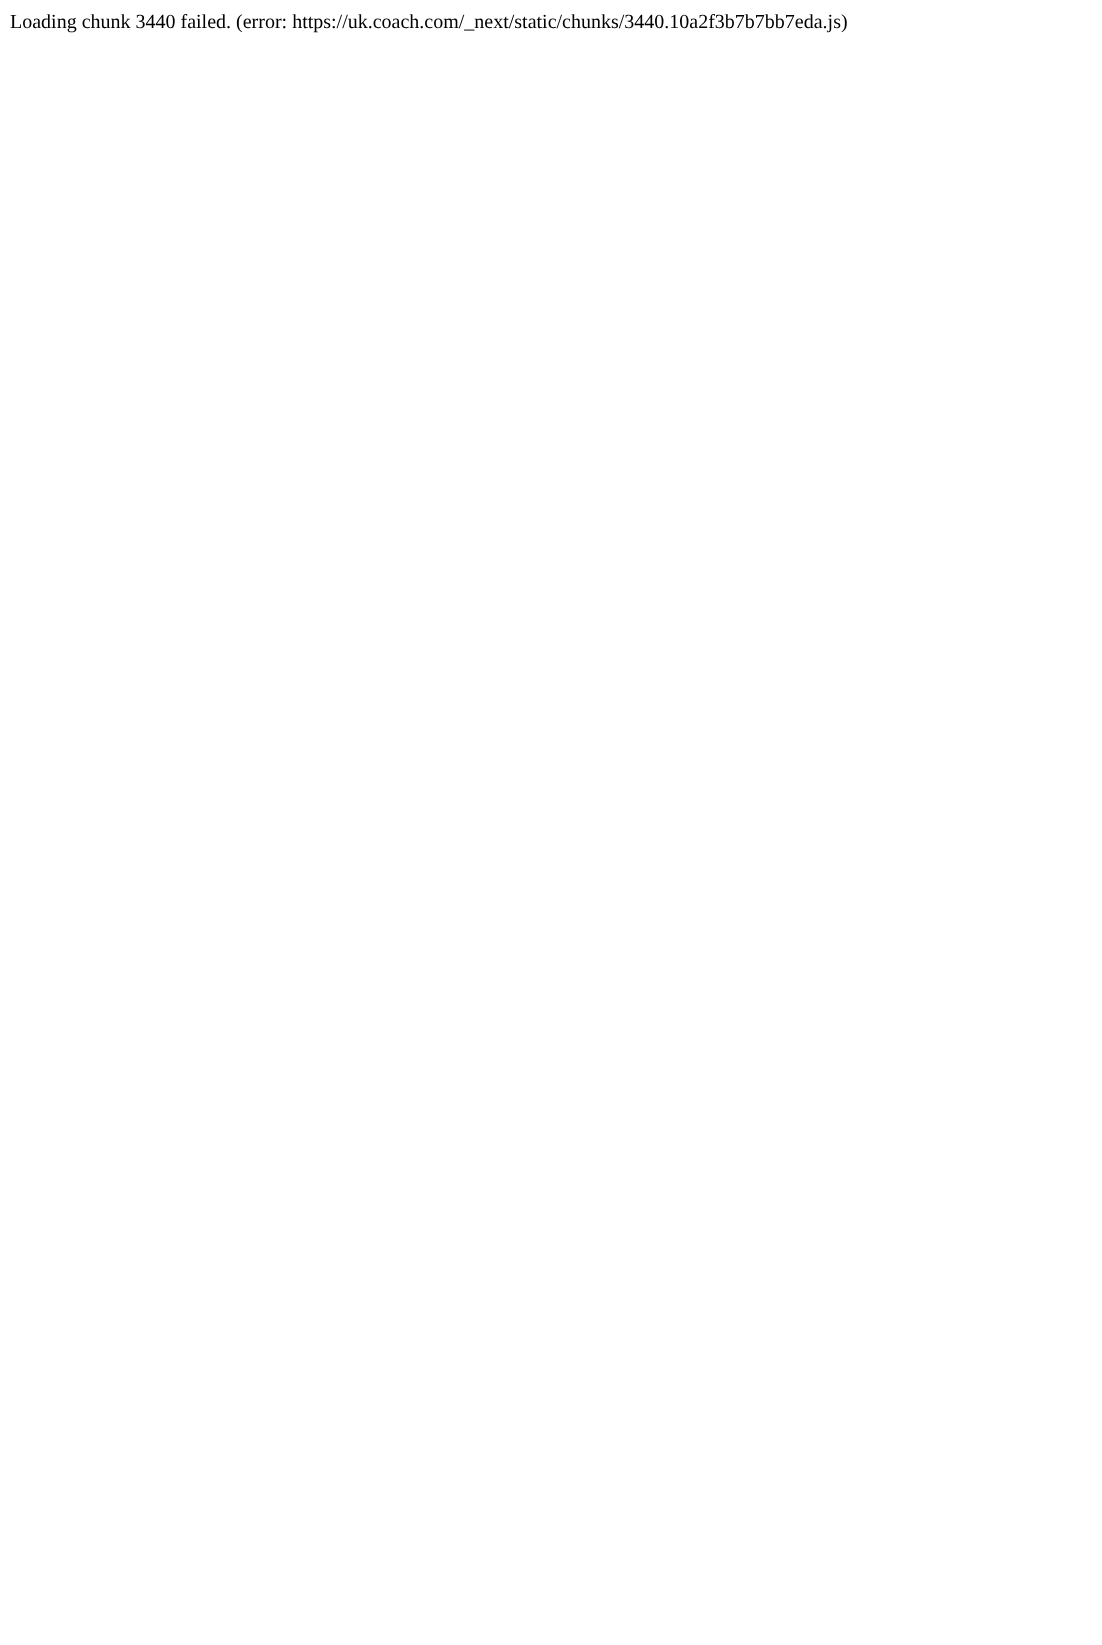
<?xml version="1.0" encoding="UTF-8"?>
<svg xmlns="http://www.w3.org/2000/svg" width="1102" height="1645">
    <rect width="100%" height="100%" fill="#FFFFFF"/>
    <text x="10" y="28" font-family="Liberation Serif" font-size="20" fill="#000000">Loading chunk 3440 failed. (error: https://uk.coach.com/_next/static/chunks/3440.10a2f3b7b7bb7eda.js)</text>
</svg>
